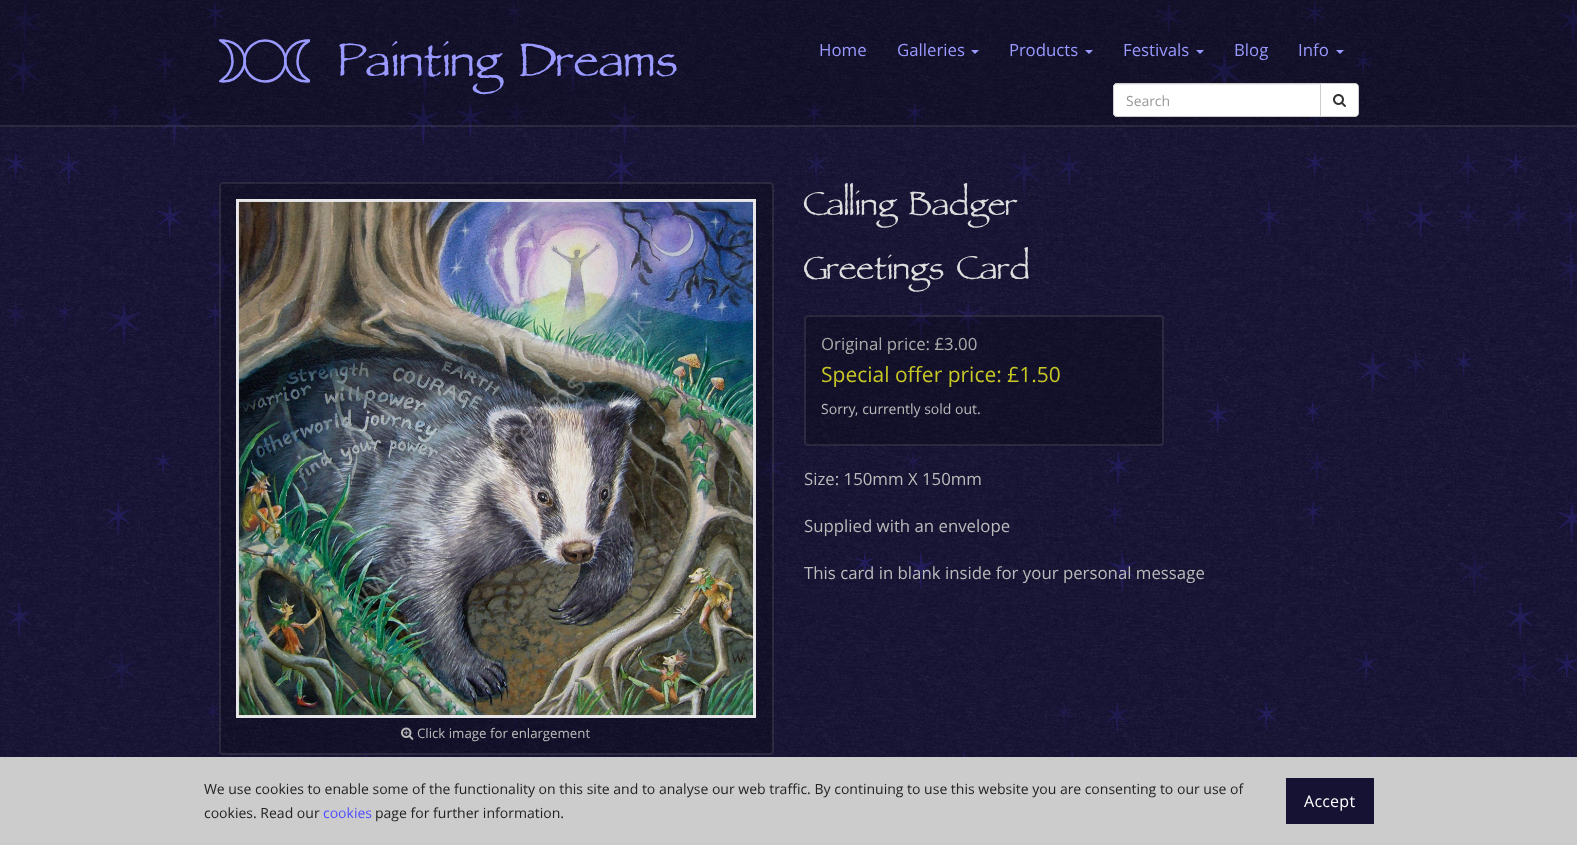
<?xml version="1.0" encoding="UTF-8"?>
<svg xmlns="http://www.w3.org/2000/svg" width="1577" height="845">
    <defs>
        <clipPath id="clip1"><rect x="219" y="39" width="91" height="44"/></clipPath>
    </defs>
    <rect width="100%" height="100%" fill="#FFFFFF"/>
    <image x="0" y="0" width="1577" height="757" href="img_01.png"/>
    <image x="8" y="2" width="34" height="45" href="img_02.png"/>
    <image x="205" y="1" width="20" height="28" href="img_03.png"/>
    <image x="504" y="1" width="20" height="26" href="img_04.png"/>
    <image x="1156" y="1" width="25" height="35" href="img_05.png"/>
    <image x="1305" y="1" width="20" height="27" href="img_06.png"/>
    <image x="1557" y="1" width="20" height="44" href="img_07.png"/>
    <image x="7" y="51" width="32" height="44" href="img_08.png"/>
    <image x="155" y="51" width="20" height="28" href="img_09.png"/>
    <image x="408" y="51" width="34" height="46" href="img_11.png"/>
    <image x="557" y="51" width="31" height="43" href="img_12.png"/>
    <image x="1208" y="51" width="33" height="32" href="img_13.png"/>
    <image x="1354" y="51" width="18" height="24" href="img_14.png"/>
    <image x="105" y="101" width="19" height="27" href="img_15.png"/>
    <image x="158" y="101" width="33" height="46" href="img_16.png"/>
    <image x="407" y="101" width="33" height="44" href="img_17.png"/>
    <image x="456" y="101" width="28" height="38" href="img_18.png"/>
    <image x="506" y="101" width="22" height="31" href="img_19.png"/>
    <image x="608" y="101" width="34" height="46" href="img_20.png"/>
    <image x="804" y="101" width="20" height="26" href="img_21.png"/>
    <image x="905" y="101" width="20" height="27" href="img_22.png"/>
    <image x="1306" y="117" width="22" height="15" href="img_23.png"/>
    <rect x="0" y="0" width="1577" height="127" fill="#000000" fill-opacity="0.2"/>
    <rect x="0" y="125" width="1577" height="2" fill="#FFFFFF" fill-opacity="0.1"/>
    <circle cx="265" cy="61" r="20.5" fill="none" stroke="#9999FF" stroke-width="2.5"/>
    <g clip-path="url(#clip1)">
        <path d="M 232.5 61.5 C 232.5 66.5 230 71.5 227 75.5 L 220.5 81 L 223 81.5 C 239.5 81.5 251 63.5 241 49.5 C 237 44 230.5 41 223.5 40.5 H 220.5 L 226.5 45 C 231 49.5 232.5 55.5 232.5 61.5 Z" fill="none" stroke="#9999FF" stroke-width="2.5"/>
        <path d="M 297.5 61.5 C 297.5 66.5 299.5 71.5 302.5 75.5 L 309.5 81 L 307 81.5 C 290.5 81.5 279 63.5 289 49.5 C 293 44 299.5 41 306 40.5 H 309.5 L 303.5 45 C 299 49.5 297.5 55.5 297.5 61.5 Z" fill="none" stroke="#9999FF" stroke-width="2.5"/>
    </g>
    <text x="339" y="76" font-family="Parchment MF" font-size="75.5" fill="#9999FF">Painting Dreams</text>
    <text x="819" y="56" font-family="Open Sans" font-size="16.8" fill="#9999FF">Home</text>
    <text x="897" y="56" font-family="Open Sans" font-size="16.8" fill="#9999FF">Galleries</text>
    <path d="M 971 50 H 979 L 975 54 Z" fill="#9999FF"/>
    <text x="1009" y="56" font-family="Open Sans" font-size="16.8" fill="#9999FF">Products</text>
    <path d="M 1085 50 H 1093 L 1089 54 Z" fill="#9999FF"/>
    <text x="1123" y="56" font-family="Open Sans" font-size="16.8" fill="#9999FF">Festivals</text>
    <path d="M 1196 50 H 1204 L 1200 54 Z" fill="#9999FF"/>
    <text x="1234" y="56" font-family="Open Sans" font-size="16.8" fill="#9999FF">Blog</text>
    <text x="1298" y="56" font-family="Open Sans" font-size="16.8" fill="#9999FF">Info</text>
    <path d="M 1336 50 H 1344 L 1340 54 Z" fill="#9999FF"/>
    <path d="M 1117 83 H 1321 V 117 H 1117 C 1115 117 1113 115 1113 113 V 87 C 1113 85 1115 83 1117 83 Z" fill="#FFFFFF"/>
    <path d="M 1117 85 H 1320 V 84 H 1116 C 1114 85 1114 86 1114 88 C 1114 86 1115 85 1117 85 Z" fill="#ECECEC"/>
    <path d="M 1117 83.5 H 1320.5 V 116.5 H 1117 C 1115 116.5 1113.5 115 1113.5 113 V 87 C 1113.5 85 1115 83.5 1117 83.5 Z" fill="none" stroke="#CCCCCC"/>
    <text x="1126" y="106" font-family="Open Sans" font-size="14" fill="#999999">Search</text>
    <path d="M 1320.5 83.5 H 1355 C 1357 83.5 1358.5 85 1358.5 87 V 113 C 1358.5 115 1357 116.5 1355 116.5 H 1320.5 Z" fill="#FFFFFF" stroke="#CCCCCC"/>
    <image x="1333" y="94" width="13" height="13" href="img_10.png"/>
    <image x="5" y="151" width="22" height="29" href="img_24.png"/>
    <image x="56" y="151" width="25" height="35" href="img_25.png"/>
    <image x="607" y="151" width="29" height="40" href="img_26.png"/>
    <image x="805" y="151" width="22" height="30" href="img_27.png"/>
    <image x="1008" y="151" width="33" height="46" href="img_28.png"/>
    <image x="1056" y="151" width="26" height="36" href="img_29.png"/>
    <image x="1305" y="151" width="20" height="27" href="img_30.png"/>
    <image x="1455" y="151" width="25" height="33" href="img_31.png"/>
    <image x="1505" y="151" width="22" height="29" href="img_32.png"/>
    <image x="156" y="201" width="27" height="37" href="img_33.png"/>
    <image x="205" y="201" width="19" height="27" href="img_34.png"/>
    <text font-family="Parchment MF" font-size="53" fill="#DDDDDD">
        <tspan x="804" y="215">Calling Badger</tspan>
        <tspan x="804" y="279">Greetings Card</tspan>
    </text>
    <image x="907" y="301" width="28" height="39" href="img_50.png"/>
    <image x="956" y="301" width="25" height="34" href="img_51.png"/>
    <rect x="804" y="315" width="360" height="131" rx="4" fill="#000000" fill-opacity="0.2"/>
    <rect x="805" y="316" width="358" height="129" rx="3" fill="none" stroke="#FFFFFF" stroke-opacity="0.1" stroke-width="2"/>
    <text x="821" y="350" font-family="Open Sans" font-size="16.8" fill="#AAAAAA">Original price: £3.00</text>
    <text x="821" y="382" font-family="Open Sans" font-size="21" fill="#C7C725">Special offer price: £1.50</text>
    <text x="821" y="414" font-family="Open Sans" font-size="14" fill="#BBBBBB">Sorry, currently sold out.</text>
    <image x="905" y="451" width="17" height="24" href="img_59.png"/>
    <text x="804" y="485" font-family="Open Sans" font-size="16.8" fill="#BBBBBB">Size: 150mm X 150mm</text>
    <text x="804" y="532" font-family="Open Sans" font-size="16.8" fill="#BBBBBB">Supplied with an envelope</text>
    <image x="855" y="551" width="20" height="27" href="img_66.png"/>
    <image x="907" y="551" width="28" height="39" href="img_67.png"/>
    <image x="1107" y="551" width="30" height="42" href="img_68.png"/>
    <text x="804" y="579" font-family="Open Sans" font-size="16.8" fill="#BBBBBB">This card in blank inside for your personal message</text>
    <image x="717" y="201" width="2" height="1" href="img_37.png"/>
    <image x="207" y="251" width="30" height="42" href="img_44.png"/>
    <image x="205" y="301" width="20" height="28" href="img_49.png"/>
    <image x="757" y="451" width="28" height="38" href="img_58.png"/>
    <image x="204" y="701" width="17" height="23" href="img_76.png"/>
    <image x="505" y="714" width="20" height="15" href="img_77.png"/>
    <image x="365" y="751" width="3" height="6" href="img_82.png"/>
    <rect x="219" y="182" width="555" height="573" rx="4" fill="#000000" fill-opacity="0.2"/>
    <rect x="220" y="183" width="553" height="571" rx="3" fill="none" stroke="#FFFFFF" stroke-opacity="0.1" stroke-width="2"/>
    <rect x="237.5" y="200.5" width="517" height="516" fill="none" stroke="#FFFFFF" stroke-opacity="0.9" stroke-width="3"/>
    <image x="238" y="201" width="515" height="514" href="img_35.png"/>
    <image x="401" y="727" width="13" height="13" href="img_36.png"/>
    <text x="417" y="738" font-family="Open Sans" font-size="13.25" fill="#BBBBBB">Click image for enlargement</text>
    <image x="1256" y="201" width="26" height="36" href="img_38.png"/>
    <image x="1356" y="201" width="24" height="33" href="img_39.png"/>
    <image x="1406" y="201" width="29" height="39" href="img_40.png"/>
    <image x="1455" y="201" width="25" height="33" href="img_41.png"/>
    <image x="1506" y="201" width="25" height="34" href="img_42.png"/>
    <image x="1556" y="201" width="21" height="38" href="img_43.png"/>
    <image x="1557" y="251" width="20" height="40" href="img_45.png"/>
    <image x="5" y="301" width="21" height="29" href="img_46.png"/>
    <image x="54" y="301" width="20" height="26" href="img_47.png"/>
    <image x="107" y="301" width="33" height="44" href="img_48.png"/>
    <image x="1357" y="351" width="31" height="43" href="img_52.png"/>
    <image x="1405" y="351" width="21" height="29" href="img_53.png"/>
    <image x="1454" y="351" width="19" height="25" href="img_54.png"/>
    <image x="1205" y="401" width="25" height="33" href="img_55.png"/>
    <image x="1304" y="401" width="17" height="23" href="img_56.png"/>
    <image x="154" y="451" width="18" height="24" href="img_57.png"/>
    <image x="1106" y="451" width="25" height="34" href="img_60.png"/>
    <image x="1305" y="451" width="24" height="32" href="img_61.png"/>
    <image x="106" y="501" width="25" height="34" href="img_62.png"/>
    <image x="1105" y="501" width="20" height="27" href="img_63.png"/>
    <image x="1304" y="501" width="18" height="24" href="img_64.png"/>
    <image x="1557" y="501" width="20" height="41" href="img_65.png"/>
    <image x="1458" y="551" width="33" height="46" href="img_69.png"/>
    <image x="6" y="601" width="26" height="36" href="img_70.png"/>
    <image x="1506" y="601" width="28" height="38" href="img_71.png"/>
    <image x="107" y="651" width="29" height="40" href="img_72.png"/>
    <image x="1355" y="651" width="22" height="30" href="img_73.png"/>
    <image x="1508" y="651" width="33" height="46" href="img_74.png"/>
    <image x="1555" y="651" width="22" height="31" href="img_75.png"/>
    <image x="1054" y="701" width="20" height="26" href="img_78.png"/>
    <image x="1105" y="701" width="24" height="32" href="img_79.png"/>
    <image x="1255" y="701" width="22" height="30" href="img_80.png"/>
    <image x="114" y="751" width="2" height="6" href="img_81.png"/>
    <image x="963" y="751" width="2" height="6" href="img_83.png"/>
    <image x="1071" y="751" width="3" height="6" href="img_84.png"/>
    <image x="1373" y="751" width="3" height="6" href="img_85.png"/>
    <image x="1568" y="751" width="3" height="6" href="img_86.png"/>
    <rect x="0" y="757" width="1577" height="88" fill="#CCCCCC"/>
    <text font-family="Open Sans" font-size="14" fill="#222222">
        <tspan x="204" y="794">We use cookies to enable some of the functionality on this site and to analyse our web traffic. By continuing to use this website you are consenting to our use of</tspan>
        <tspan x="204" y="818">cookies. Read our</tspan>
    </text>
    <text x="323" y="818" font-family="Open Sans" font-size="14" fill="#4D4DFF">cookies</text>
    <text x="375" y="818" font-family="Open Sans" font-size="14" fill="#222222">page for further information.</text>
    <rect x="1286" y="778" width="88" height="46" fill="#151233"/>
    <text x="1304" y="807" font-family="Open Sans" font-size="16" letter-spacing="0.25" fill="#FFFFFF">Accept</text>
</svg>
